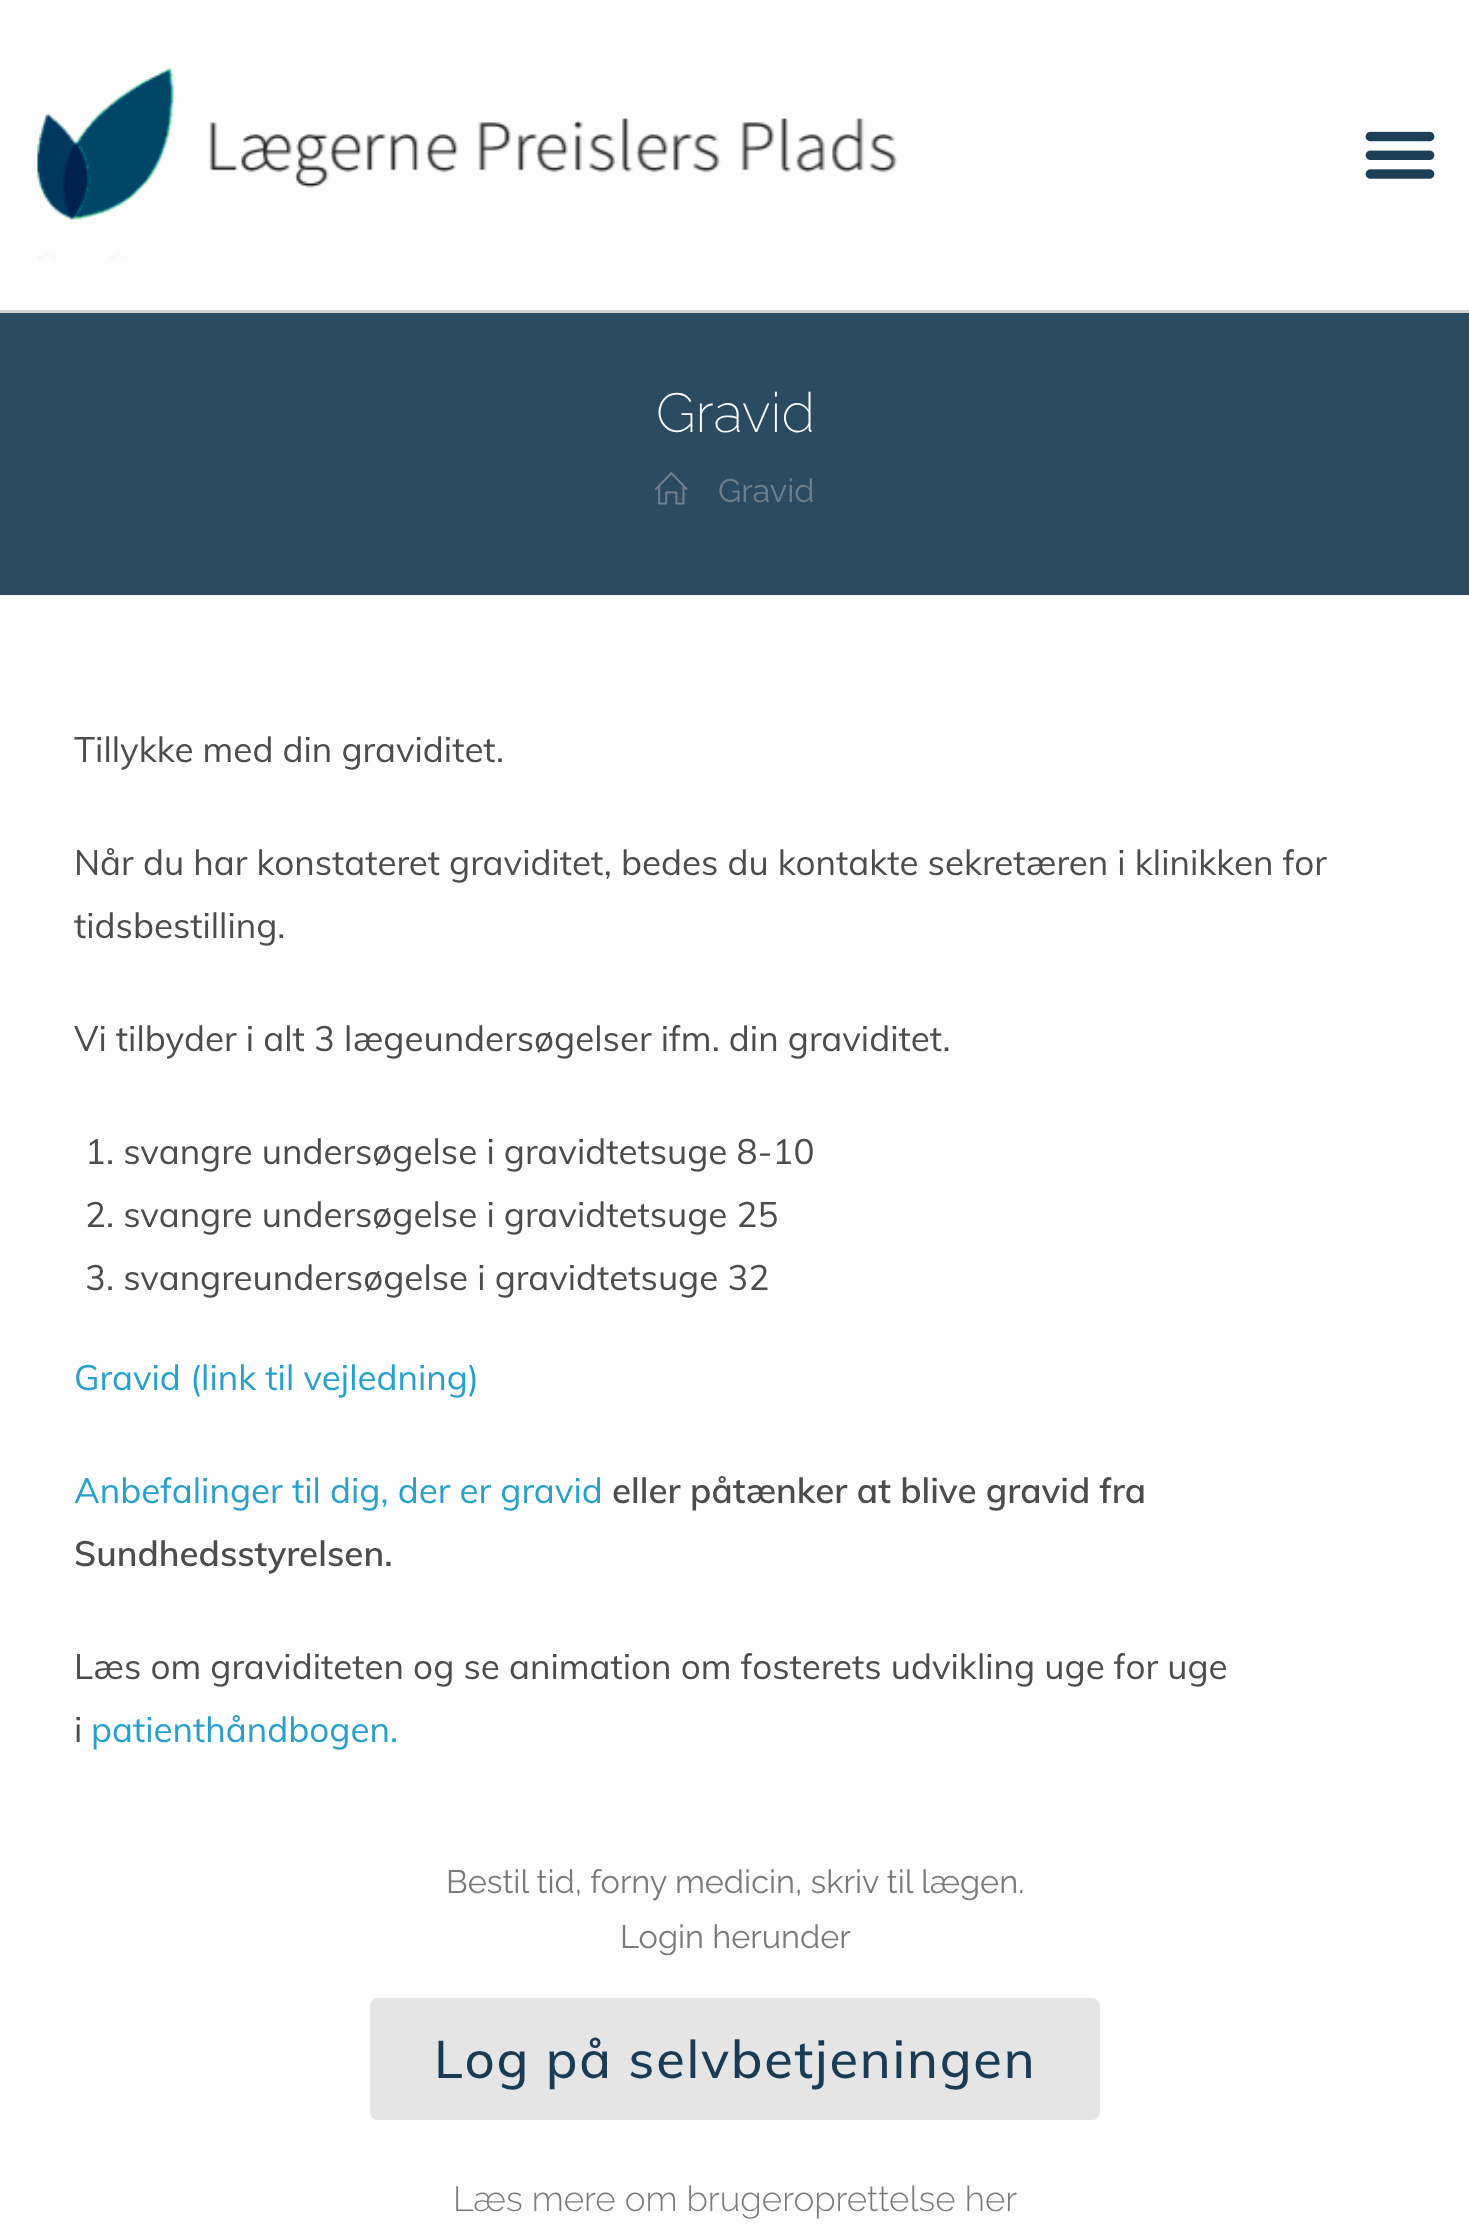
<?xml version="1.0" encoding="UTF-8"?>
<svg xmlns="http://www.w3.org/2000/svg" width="1469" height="2236">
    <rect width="100%" height="100%" fill="#FDFDFD"/>
    <rect x="0" y="310" width="1469" height="3" fill="#D3D3D3"/>
    <image x="37" y="67" width="861" height="193" href="img_01.png"/>
    <image x="1365" y="131" width="70" height="48" href="img_02.png"/>
    <rect x="0" y="313" width="1469" height="282" fill="#2B4B62"/>
    <text x="656" y="432" font-family="Raleway" font-size="55" font-weight="200" fill="#FFFFFF">Gravid</text>
    <image x="655" y="472" width="33" height="33" href="img_03.png"/>
    <text x="718" y="502" font-family="Raleway" font-size="32.5" fill="#70808B">Gravid</text>
    <text x="74" y="762" font-family="Muli" font-size="35" fill="#4C4C4C">Tillykke med din graviditet.</text>
    <text font-family="Muli" font-size="35" fill="#4C4C4C">
        <tspan x="74" y="875">Når du har konstateret graviditet, bedes du kontakte sekretæren i klinikken for</tspan>
        <tspan x="74" y="938">tidsbestilling.</tspan>
    </text>
    <text x="74" y="1051" font-family="Muli" font-size="35" fill="#4C4C4C">Vi tilbyder i alt 3 lægeundersøgelser ifm. din graviditet.</text>
    <text font-family="Muli" font-size="35" fill="#4C4C4C">
        <tspan x="85" y="1164">1. svangre undersøgelse i gravidtetsuge 8-10</tspan>
        <tspan x="85" y="1227">2. svangre undersøgelse i gravidtetsuge 25</tspan>
        <tspan x="85" y="1290">3. svangreundersøgelse i gravidtetsuge 32</tspan>
    </text>
    <text x="74" y="1390" font-family="Muli" font-size="35" fill="#28A0CC">Gravid (link til vejledning)</text>
    <text x="74" y="1503" font-family="Muli" font-size="35" fill="#28A0CC">Anbefalinger til dig, der er gravid</text>
    <text x="612" y="1503" font-family="Muli" font-size="35" font-weight="600" fill="#4C4C4C">eller påtænker at blive gravid fra</text>
    <text x="74" y="1566" font-family="Muli" font-size="35" font-weight="600" fill="#4C4C4C">Sundhedsstyrelsen.</text>
    <text font-family="Muli" font-size="35" fill="#4C4C4C">
        <tspan x="74" y="1679">Læs om graviditeten og se animation om fosterets udvikling uge for uge</tspan>
        <tspan x="74" y="1742">i</tspan>
    </text>
    <text x="91" y="1742" font-family="Muli" font-size="35" fill="#28A0CC">patienthåndbogen.</text>
    <text x="446" y="1893" font-family="Raleway" font-size="32.5" fill="#7A7A7A">Bestil tid, forny medicin, skriv til lægen.</text>
    <text x="620" y="1948" font-family="Raleway" font-size="32.5" fill="#7A7A7A">Login herunder</text>
    <rect x="372.5" y="2000.5" width="725" height="117" rx="5.5" fill="#E5E5E5" stroke="#E5E5E5" stroke-width="5"/>
    <text x="434" y="2078" font-family="Muli" font-size="52.5" font-weight="500" letter-spacing="1.75" fill="#193B54">Log på selvbetjeningen</text>
    <text x="453" y="2211" font-family="Raleway" font-size="35" font-weight="300" fill="#7A7A7A">Læs mere om brugeroprettelse her</text>
</svg>
